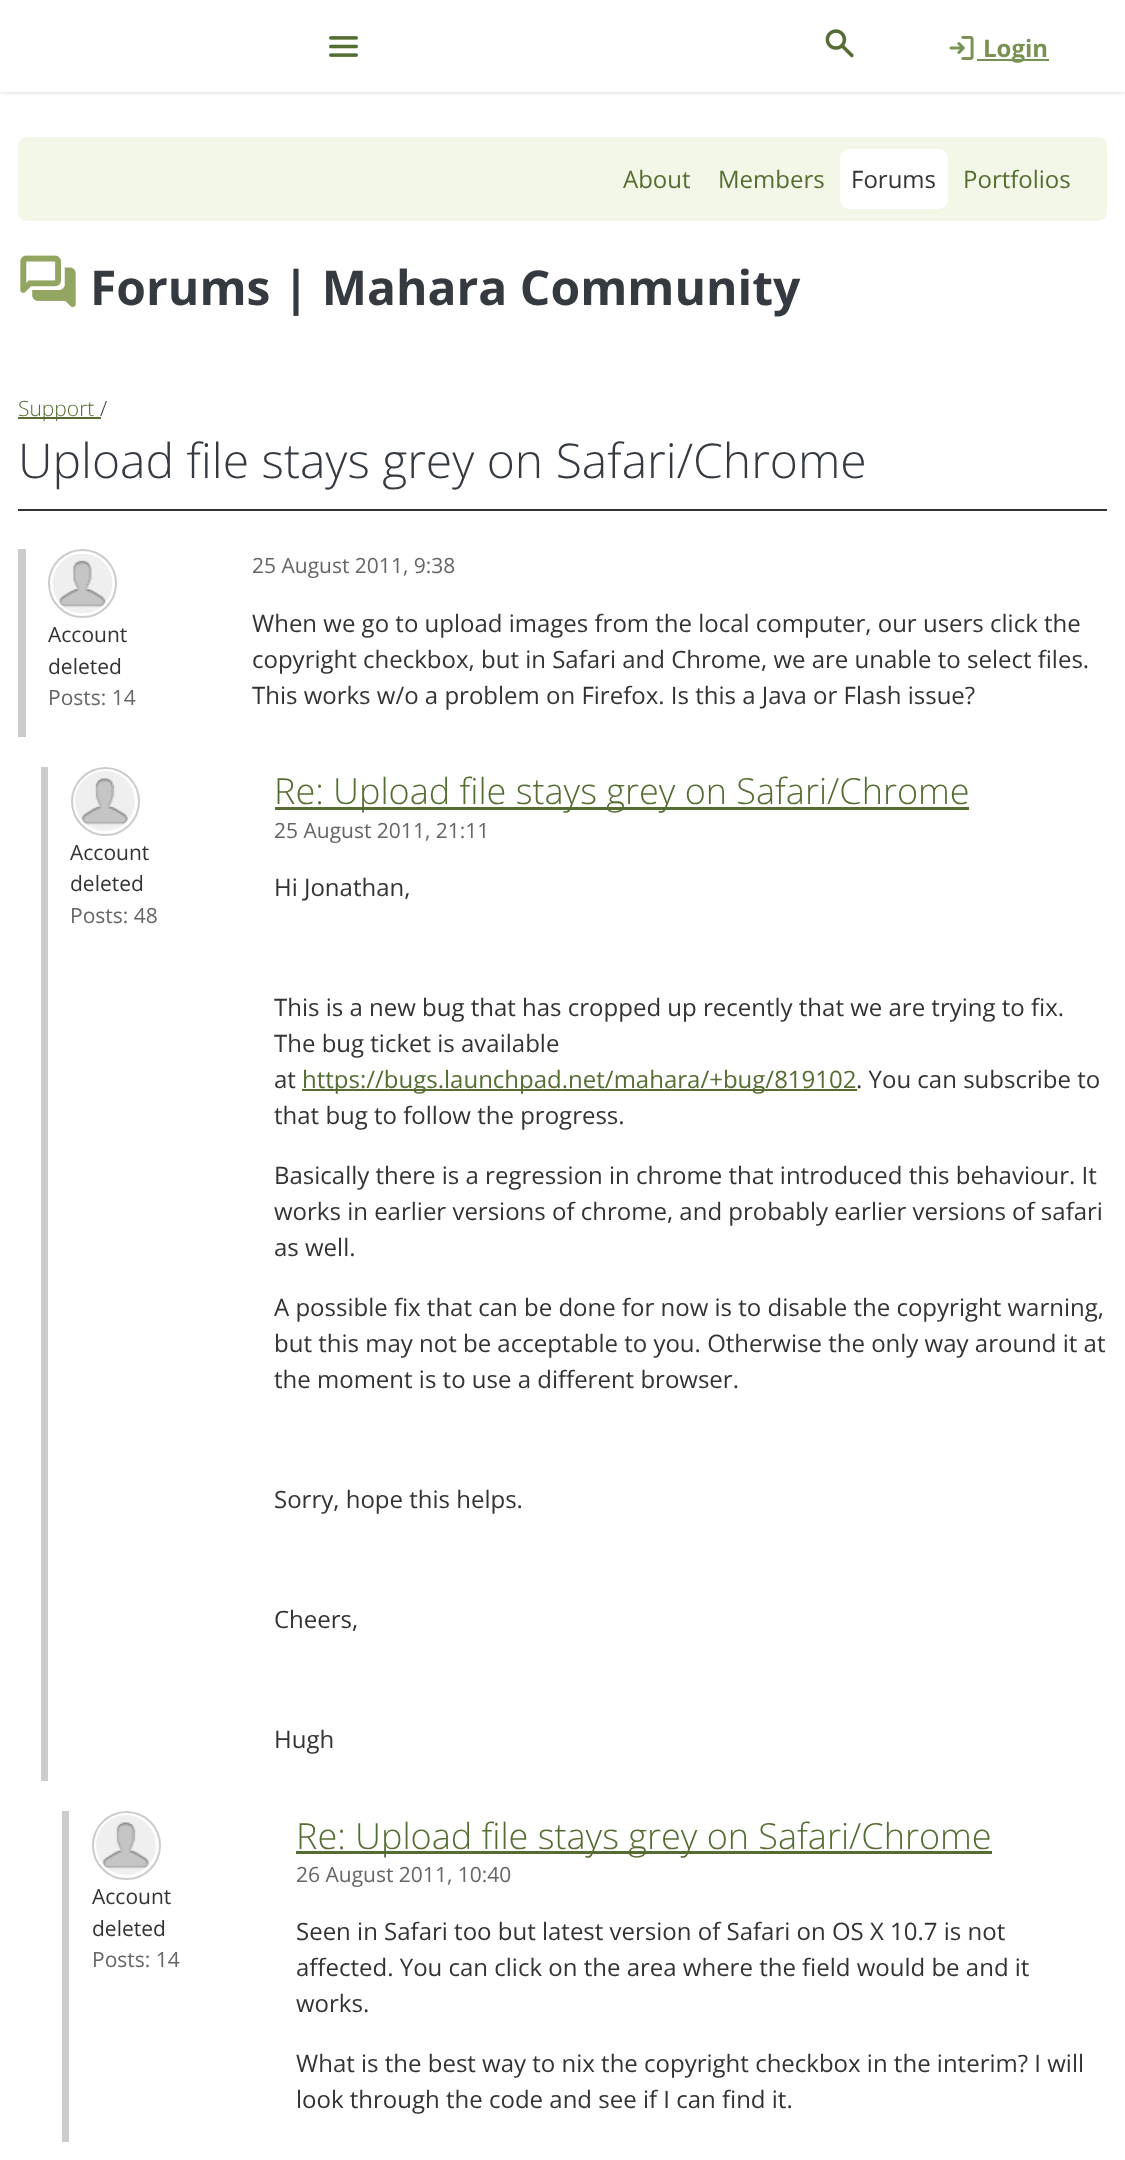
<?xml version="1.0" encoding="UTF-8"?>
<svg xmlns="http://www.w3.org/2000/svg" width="1125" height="2160">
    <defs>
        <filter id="blur1" x="-50%" y="-200%" width="200%" height="500%"><feGaussianBlur stdDeviation="2"/></filter>
    </defs>
    <rect width="100%" height="100%" fill="#FFFFFF"/>
    <rect x="0" y="0" width="1125" height="92" fill="#000000" fill-opacity="0.2" filter="url(#blur1)"/>
    <rect x="0" y="0" width="1125" height="92" fill="#FFFFFF"/>
    <image x="329" y="36" width="29" height="21" href="img_01.png"/>
    <image x="825" y="29" width="29" height="29" href="img_02.png"/>
    <image x="949" y="35" width="25" height="25" href="img_03.png"/>
    <rect x="977" y="59" width="72" height="2" fill="#799152"/>
    <text x="983" y="57" font-family="Open Sans" font-size="24" font-weight="700" fill="#799152">Login</text>
    <rect x="18" y="137" width="1089" height="84" rx="9" fill="#F3F7E7"/>
    <text x="623" y="188" font-family="Open Sans" font-size="24" fill="#556D32">About</text>
    <text x="718" y="188" font-family="Open Sans" font-size="24" fill="#556D32">Members</text>
    <rect x="840" y="149" width="108" height="60" rx="9" fill="#FFFFFF"/>
    <text x="851" y="188" font-family="Open Sans" font-size="24" fill="#333333">Forums</text>
    <text x="963" y="188" font-family="Open Sans" font-size="24" fill="#556D32">Portfolios</text>
    <image x="20" y="255" width="56" height="53" href="img_04.png"/>
    <text x="90" y="305" font-family="Open Sans" font-size="48" font-weight="700" fill="#343A40">Forums | Mahara Community</text>
    <rect x="18" y="417" width="83" height="2" fill="#556D32"/>
    <text x="18" y="416" font-family="Open Sans" font-size="21" font-weight="300" fill="#556D32">Support</text>
    <text x="100" y="416" font-family="Open Sans" font-size="21" font-weight="300" fill="#343A40">/</text>
    <text x="18" y="478" font-family="Open Sans" font-size="48" font-weight="300" fill="#343A40">Upload file stays grey on Safari/Chrome</text>
    <rect x="18" y="509" width="1089" height="2" fill="#333333"/>
    <rect x="18" y="549" width="8" height="188" fill="#CCCCCC"/>
    <circle cx="82.5" cy="583.5" r="33.5" fill="none" stroke="#CCCCCC" stroke-width="2"/>
    <image x="52" y="554" width="60" height="59" href="img_05.png"/>
    <text font-family="Open Sans" font-size="21" fill="#333333">
        <tspan x="48" y="642">Account</tspan>
        <tspan x="48" y="674">deleted</tspan>
    </text>
    <text x="48" y="705" font-family="Open Sans" font-size="21" fill="#666666">Posts: 14</text>
    <text x="252" y="573" font-family="Open Sans" font-size="21" fill="#666666">25 August 2011, 9:38</text>
    <text font-family="Open Sans" font-size="24" fill="#333333">
        <tspan x="252" y="632">When we go to upload images from the local computer, our users click the</tspan>
        <tspan x="252" y="668">copyright checkbox, but in Safari and Chrome, we are unable to select files.</tspan>
        <tspan x="252" y="704">This works w/o a problem on Firefox. Is this a Java or Flash issue?</tspan>
    </text>
    <rect x="41" y="767" width="7" height="1014" fill="#CCCCCC"/>
    <circle cx="105.5" cy="801.5" r="33.5" fill="none" stroke="#CCCCCC" stroke-width="2"/>
    <image x="75" y="771" width="60" height="60" href="img_06.png"/>
    <text font-family="Open Sans" font-size="21" fill="#333333">
        <tspan x="70" y="860">Account</tspan>
        <tspan x="70" y="891">deleted</tspan>
    </text>
    <text x="70" y="923" font-family="Open Sans" font-size="21" fill="#666666">Posts: 48</text>
    <rect x="275" y="807" width="694" height="3" fill="#556D32"/>
    <text x="274" y="804" font-family="Open Sans" font-size="36" font-weight="300" fill="#556D32">Re: Upload file stays grey on Safari/Chrome</text>
    <text x="274" y="838" font-family="Open Sans" font-size="21" fill="#666666">25 August 2011, 21:11</text>
    <text x="274" y="896" font-family="Open Sans" font-size="24" fill="#333333">Hi Jonathan,</text>
    <text font-family="Open Sans" font-size="24" fill="#333333">
        <tspan x="274" y="1016">This is a new bug that has cropped up recently that we are trying to fix.</tspan>
        <tspan x="274" y="1052">The bug ticket is available</tspan>
        <tspan x="274" y="1088">at</tspan>
    </text>
    <rect x="302" y="1089" width="555" height="2" fill="#556D32"/>
    <text x="302" y="1088" font-family="Open Sans" font-size="24" fill="#556D32">https://bugs.launchpad.net/mahara/+bug/819102</text>
    <text x="856" y="1088" font-family="Open Sans" font-size="24" fill="#333333">. You can subscribe to</text>
    <text x="274" y="1124" font-family="Open Sans" font-size="24" fill="#333333">that bug to follow the progress.</text>
    <text font-family="Open Sans" font-size="24" fill="#333333">
        <tspan x="274" y="1184">Basically there is a regression in chrome that introduced this behaviour. It</tspan>
        <tspan x="274" y="1220">works in earlier versions of chrome, and probably earlier versions of safari</tspan>
        <tspan x="274" y="1256">as well.</tspan>
    </text>
    <text font-family="Open Sans" font-size="24" fill="#333333">
        <tspan x="274" y="1316">A possible fix that can be done for now is to disable the copyright warning,</tspan>
        <tspan x="274" y="1352">but this may not be acceptable to you. Otherwise the only way around it at</tspan>
        <tspan x="274" y="1388">the moment is to use a different browser.</tspan>
    </text>
    <text x="274" y="1508" font-family="Open Sans" font-size="24" fill="#333333">Sorry, hope this helps.</text>
    <text x="274" y="1628" font-family="Open Sans" font-size="24" fill="#333333">Cheers,</text>
    <text x="274" y="1748" font-family="Open Sans" font-size="24" fill="#333333">Hugh</text>
    <rect x="62" y="1811" width="7" height="331" fill="#CCCCCC"/>
    <circle cx="126.5" cy="1845.5" r="33.5" fill="none" stroke="#CCCCCC" stroke-width="2"/>
    <image x="96" y="1815" width="60" height="60" href="img_07.png"/>
    <text font-family="Open Sans" font-size="21" fill="#333333">
        <tspan x="92" y="1904">Account</tspan>
        <tspan x="92" y="1936">deleted</tspan>
    </text>
    <text x="92" y="1967" font-family="Open Sans" font-size="21" fill="#666666">Posts: 14</text>
    <rect x="296" y="1851" width="696" height="3" fill="#556D32"/>
    <text x="296" y="1849" font-family="Open Sans" font-size="36" font-weight="300" fill="#556D32">Re: Upload file stays grey on Safari/Chrome</text>
    <text x="296" y="1882" font-family="Open Sans" font-size="21" fill="#666666">26 August 2011, 10:40</text>
    <text font-family="Open Sans" font-size="24" fill="#333333">
        <tspan x="296" y="1940">Seen in Safari too but latest version of Safari on OS X 10.7 is not</tspan>
        <tspan x="296" y="1976">affected. You can click on the area where the field would be and it</tspan>
        <tspan x="296" y="2012">works.</tspan>
    </text>
    <text font-family="Open Sans" font-size="24" fill="#333333">
        <tspan x="296" y="2072">What is the best way to nix the copyright checkbox in the interim? I will</tspan>
        <tspan x="296" y="2108">look through the code and see if I can find it.</tspan>
    </text>
</svg>
